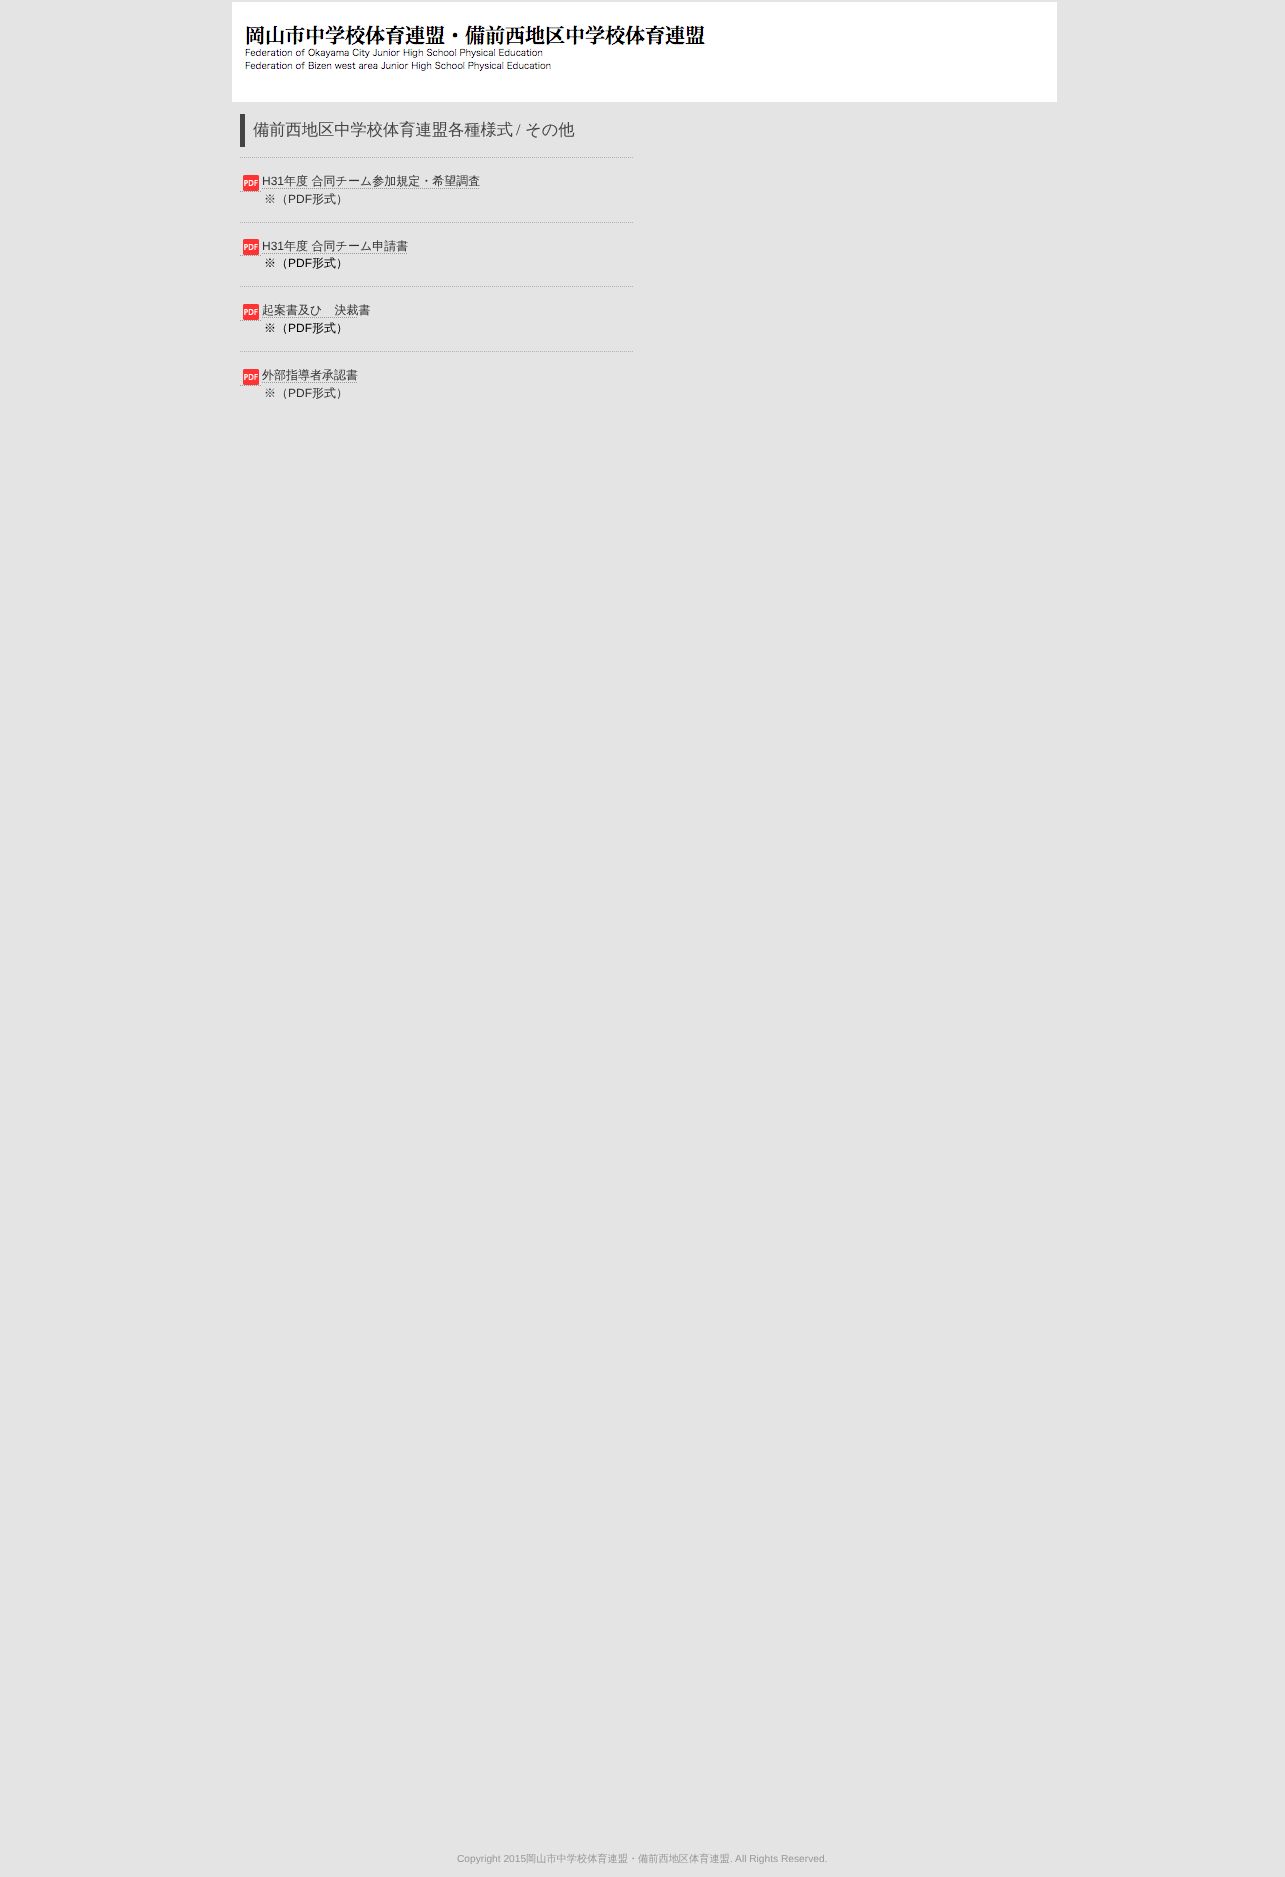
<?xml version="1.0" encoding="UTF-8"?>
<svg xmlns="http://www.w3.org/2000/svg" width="1285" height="1877">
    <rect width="100%" height="100%" fill="#E4E4E4"/>
    <image x="232" y="2" width="825" height="100" href="img_01.png"/>
    <rect x="240" y="114" width="5" height="33" fill="#444444"/>
    <text x="253" y="135" font-family="WenQuanYi Zen Hei" font-size="16.25" font-weight="500" fill="#444444">備前西地区中学校体育連盟各種様式</text>
    <text x="516" y="135" font-family="Liberation Serif" font-size="16.25" fill="#444444">/</text>
    <text x="525" y="135" font-family="WenQuanYi Zen Hei" font-size="16.25" font-weight="500" fill="#444444">その他</text>
    <image x="240" y="157" width="393" height="1" href="img_02.png"/>
    <image x="243" y="175" width="16" height="16" href="img_03.png"/>
    <text x="262" y="185" font-family="Liberation Sans" font-size="12" fill="#333333">H31</text>
    <path d="M 240 191.5 H 262" fill="none" stroke="#999999" stroke-dasharray="1 1"/>
    <path d="M 262 188.5 H 480" fill="none" stroke="#999999" stroke-dasharray="1 1"/>
    <text x="284" y="185" font-family="WenQuanYi Zen Hei" font-size="12" font-weight="500" fill="#333333">年度 合同チーム参加規定・希望調査</text>
    <text x="264" y="203" font-family="WenQuanYi Zen Hei" font-size="12" font-weight="500" fill="#333333">※（</text>
    <text x="288" y="203" font-family="Liberation Sans" font-size="12" fill="#333333">PDF</text>
    <text x="312" y="203" font-family="WenQuanYi Zen Hei" font-size="12" font-weight="500" fill="#333333">形式）</text>
    <image x="240" y="222" width="393" height="1" href="img_02.png"/>
    <image x="243" y="239" width="16" height="16" href="img_03.png"/>
    <text x="262" y="250" font-family="Liberation Sans" font-size="12" fill="#333333">H31</text>
    <path d="M 240 255.5 H 262" fill="none" stroke="#999999" stroke-dasharray="1 1"/>
    <path d="M 262 253.5 H 408" fill="none" stroke="#999999" stroke-dasharray="1 1"/>
    <text x="284" y="250" font-family="WenQuanYi Zen Hei" font-size="12" font-weight="500" fill="#333333">年度 合同チーム申請書</text>
    <text x="264" y="267" font-family="WenQuanYi Zen Hei" font-size="12" font-weight="500" fill="#000000">※（</text>
    <text x="288" y="267" font-family="Liberation Sans" font-size="12" fill="#000000">PDF</text>
    <text x="312" y="267" font-family="WenQuanYi Zen Hei" font-size="12" font-weight="500" fill="#000000">形式）</text>
    <image x="240" y="286" width="393" height="1" href="img_02.png"/>
    <image x="243" y="304" width="16" height="16" href="img_03.png"/>
    <text x="262" y="314" font-family="WenQuanYi Zen Hei" font-size="12" font-weight="500" fill="#333333">起案書及び決裁書</text>
    <path d="M 240 320.5 H 262" fill="none" stroke="#999999" stroke-dasharray="1 1"/>
    <path d="M 262 317.5 H 358" fill="none" stroke="#999999" stroke-dasharray="1 1"/>
    <text x="264" y="332" font-family="WenQuanYi Zen Hei" font-size="12" font-weight="500" fill="#000000">※（</text>
    <text x="288" y="332" font-family="Liberation Sans" font-size="12" fill="#000000">PDF</text>
    <text x="312" y="332" font-family="WenQuanYi Zen Hei" font-size="12" font-weight="500" fill="#000000">形式）</text>
    <image x="240" y="351" width="393" height="1" href="img_02.png"/>
    <image x="243" y="369" width="16" height="16" href="img_03.png"/>
    <text x="262" y="379" font-family="WenQuanYi Zen Hei" font-size="12" font-weight="500" fill="#333333">外部指導者承認書</text>
    <path d="M 240 385.5 H 262" fill="none" stroke="#999999" stroke-dasharray="1 1"/>
    <path d="M 262 382.5 H 358" fill="none" stroke="#999999" stroke-dasharray="1 1"/>
    <text x="264" y="397" font-family="WenQuanYi Zen Hei" font-size="12" font-weight="500" fill="#333333">※（</text>
    <text x="288" y="397" font-family="Liberation Sans" font-size="12" fill="#333333">PDF</text>
    <text x="312" y="397" font-family="WenQuanYi Zen Hei" font-size="12" font-weight="500" fill="#333333">形式）</text>
    <text x="457" y="1862" font-family="Liberation Sans" font-size="10.2" fill="#999999">Copyright 2015</text>
    <text x="526" y="1862" font-family="WenQuanYi Zen Hei" font-size="10.2" font-weight="500" fill="#999999">岡山市中学校体育連盟・備前西地区体育連盟</text>
    <text x="730" y="1862" font-family="Liberation Sans" font-size="10.2" fill="#999999">. All Rights Reserved.</text>
</svg>
